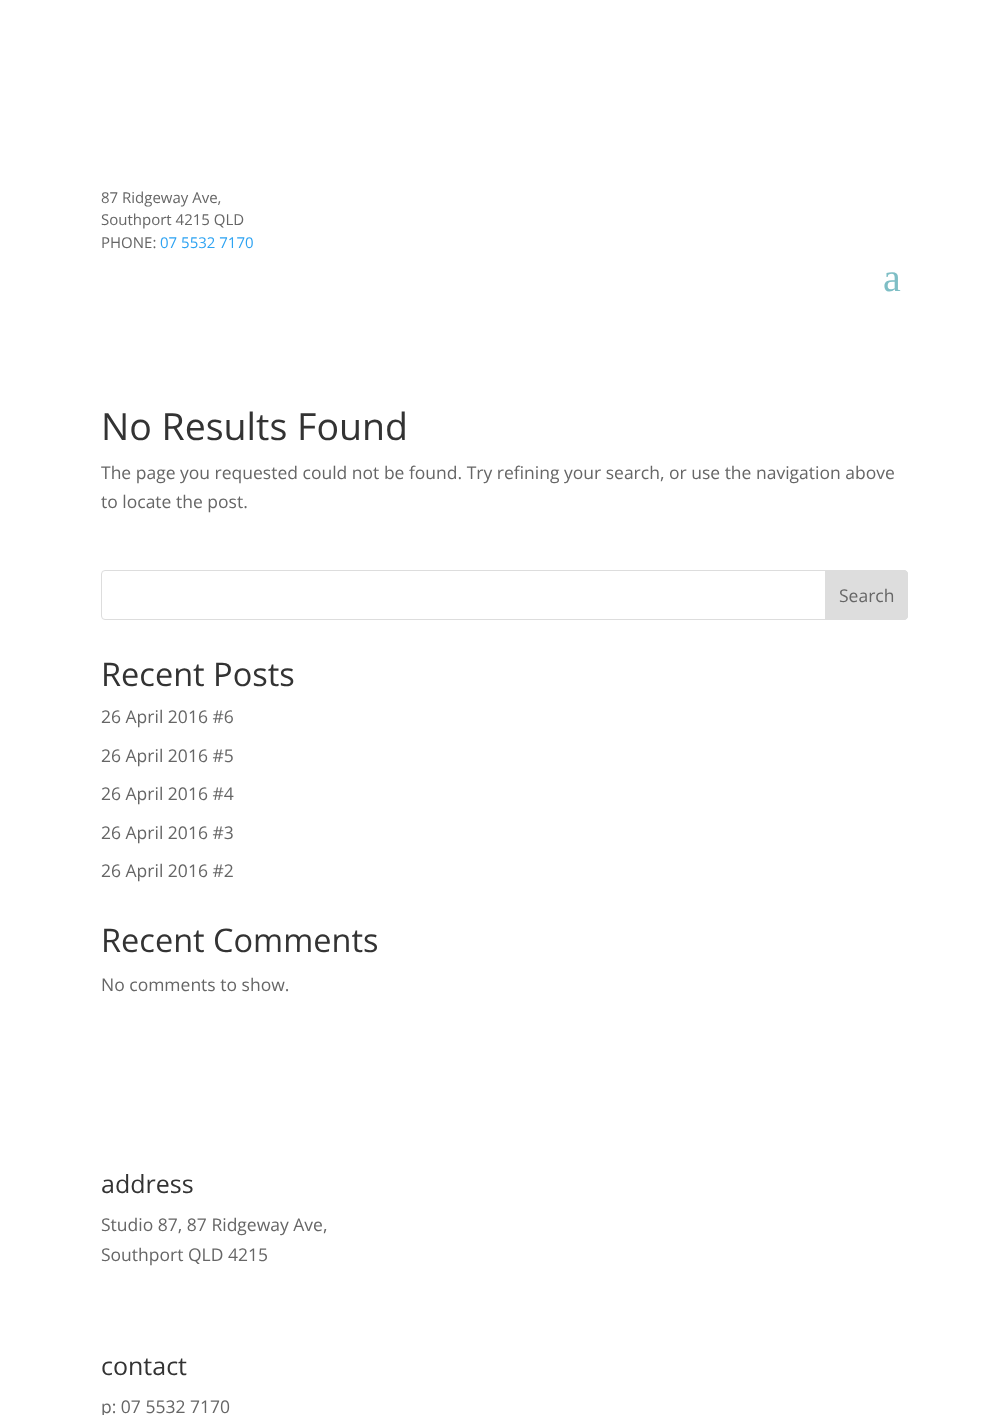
<?xml version="1.0" encoding="UTF-8"?>
<svg xmlns="http://www.w3.org/2000/svg" width="1008" height="1415">
    <rect width="100%" height="100%" fill="#FFFFFF"/>
    <text font-family="Open Sans" font-size="15" fill="#666666">
        <tspan x="101" y="203">87 Ridgeway Ave,</tspan>
        <tspan x="101" y="225">Southport 4215 QLD</tspan>
        <tspan x="101" y="248">PHONE:</tspan>
    </text>
    <text x="160" y="248" font-family="Open Sans" font-size="15" fill="#2EA3F2">07 5532 7170</text>
    <text x="883" y="291" font-family="Liberation Serif" font-size="40" fill="#7EBEC5">a</text>
    <text x="101" y="440" font-family="Open Sans" font-size="37.5" fill="#333333">No Results Found</text>
    <text font-family="Open Sans" font-size="17.5" fill="#666666">
        <tspan x="101" y="479">The page you requested could not be found. Try refining your search, or use the navigation above</tspan>
        <tspan x="101" y="508">to locate the post.</tspan>
    </text>
    <rect x="101.5" y="570.5" width="806" height="49" rx="3.5" fill="none" stroke="#DDDDDD"/>
    <path d="M 825.5 570.5 H 904 C 906 570.5 907.5 572 907.5 574 V 616 C 907.5 618 906 619.5 904 619.5 H 825.5 Z" fill="#DDDDDD" stroke="#DDDDDD"/>
    <text x="839" y="602" font-family="Open Sans" font-size="17.5" fill="#666666">Search</text>
    <text x="101" y="686" font-family="Open Sans" font-size="32.5" fill="#333333">Recent Posts</text>
    <text x="101" y="723" font-family="Open Sans" font-size="17.5" fill="#666666">26 April 2016 #6</text>
    <text x="101" y="762" font-family="Open Sans" font-size="17.5" fill="#666666">26 April 2016 #5</text>
    <text x="101" y="800" font-family="Open Sans" font-size="17.5" fill="#666666">26 April 2016 #4</text>
    <text x="101" y="839" font-family="Open Sans" font-size="17.5" fill="#666666">26 April 2016 #3</text>
    <text x="101" y="877" font-family="Open Sans" font-size="17.5" fill="#666666">26 April 2016 #2</text>
    <text x="101" y="952" font-family="Open Sans" font-size="32.5" fill="#333333">Recent Comments</text>
    <text x="101" y="991" font-family="Open Sans" font-size="17.5" fill="#666666">No comments to show.</text>
    <text x="101" y="1193" font-family="Open Sans" font-size="25" fill="#333333">address</text>
    <text font-family="Open Sans" font-size="17.5" fill="#666666">
        <tspan x="101" y="1231">Studio 87, 87 Ridgeway Ave,</tspan>
        <tspan x="101" y="1261">Southport QLD 4215</tspan>
    </text>
    <text x="101" y="1375" font-family="Open Sans" font-size="25" fill="#333333">contact</text>
    <text x="101" y="1413" font-family="Open Sans" font-size="17.5" fill="#666666">p: 07 5532 7170</text>
</svg>
